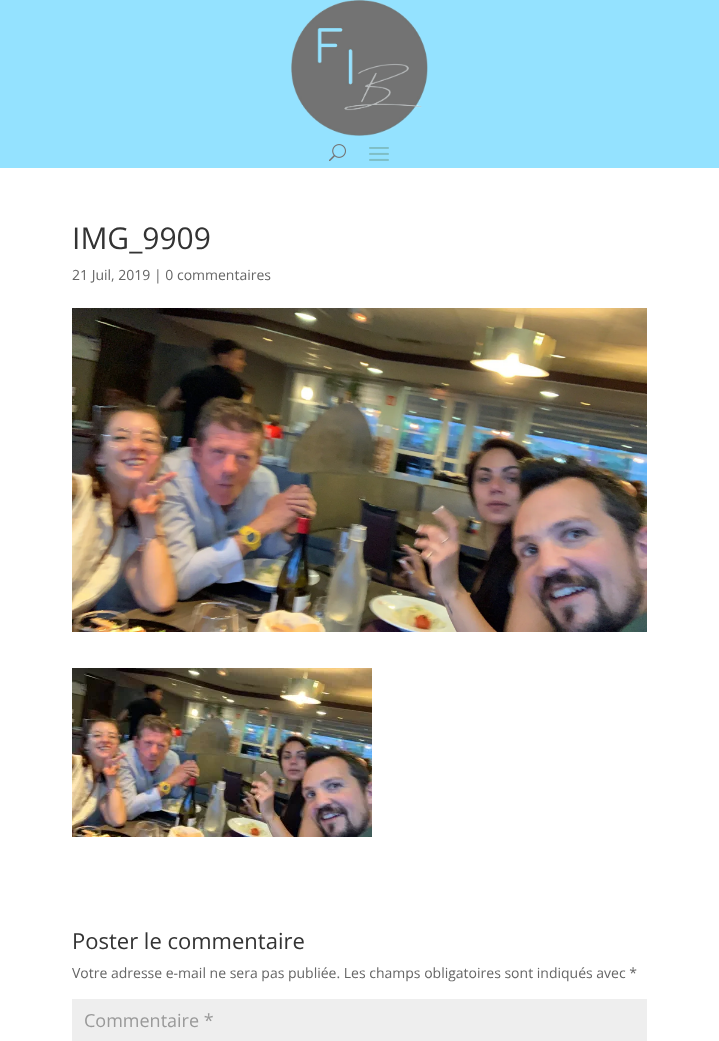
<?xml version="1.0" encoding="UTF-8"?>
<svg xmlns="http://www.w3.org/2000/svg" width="719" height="1041">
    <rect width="100%" height="100%" fill="#FFFFFF"/>
    <rect x="0" y="0" width="719" height="168" fill="#94E2FF"/>
    <image x="291" y="0" width="137" height="136" href="img_01.png"/>
    <image x="329" y="144" width="17" height="18" href="img_02.png"/>
    <image x="369" y="147" width="20" height="14" href="img_03.png"/>
    <text x="72" y="249" font-family="Open Sans" font-size="30" fill="#333333">IMG_9909</text>
    <text x="72" y="280" font-family="Open Sans" font-size="14" fill="#666666">21 Juil, 2019 | 0 commentaires</text>
    <image x="72" y="308" width="575" height="324" href="img_04.png"/>
    <image x="72" y="668" width="300" height="169" href="img_05.png"/>
    <text x="72" y="949" font-family="Open Sans" font-size="22" fill="#333333">Poster le commentaire</text>
    <text x="72" y="978" font-family="Open Sans" font-size="14" fill="#666666">Votre adresse e-mail ne sera pas publiée. Les champs obligatoires sont indiqués avec *</text>
    <rect x="72" y="999" width="575" height="42" fill="#EEEEEE"/>
    <text x="84" y="1027" font-family="Open Sans" font-size="18" fill="#999999">Commentaire *</text>
</svg>
